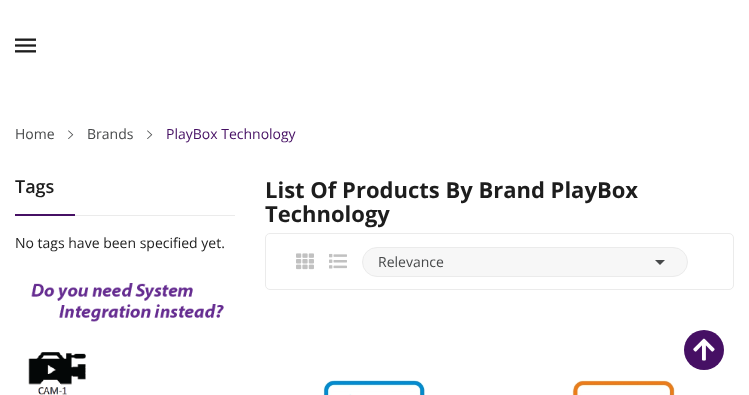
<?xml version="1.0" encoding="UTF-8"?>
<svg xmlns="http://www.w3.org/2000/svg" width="749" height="395">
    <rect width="100%" height="100%" fill="#FFFFFF"/>
    <image x="15" y="38" width="21" height="15" href="img_01.png"/>
    <text x="15" y="139" font-family="Open Sans" font-size="14" fill="#47494A">Home</text>
    <image x="68" y="130" width="6" height="9" href="img_02.png"/>
    <text x="87" y="139" font-family="Open Sans" font-size="14" fill="#47494A">Brands</text>
    <image x="147" y="130" width="6" height="9" href="img_02.png"/>
    <text x="166" y="139" font-family="Open Sans" font-size="14" fill="#461064">PlayBox Technology</text>
    <rect x="75" y="215" width="160" height="1" fill="#EBEBEB"/>
    <text x="15" y="193" font-family="Open Sans" font-size="18" font-weight="600" fill="#1D1D1D">Tags</text>
    <rect x="15" y="214" width="60" height="2" fill="#461064"/>
    <text x="15" y="248" font-family="Open Sans" font-size="14" fill="#1D1D1D">No tags have been specified yet.</text>
    <image x="28" y="283" width="196" height="112" href="img_03.png"/>
    <text font-family="Open Sans" font-size="22" font-weight="700" fill="#1D1D1D">
        <tspan x="265" y="198">List Of Products By Brand PlayBox</tspan>
        <tspan x="265" y="222">Technology</tspan>
    </text>
    <rect x="265.5" y="233.5" width="468" height="56" rx="4.5" fill="none" stroke="#EBEBEB"/>
    <image x="296" y="253" width="18" height="17" href="img_04.png"/>
    <image x="329" y="253" width="18" height="16" href="img_05.png"/>
    <rect x="362.5" y="247.5" width="325" height="29" rx="14.5" fill="#F7F7F7" stroke="#EBEBEB"/>
    <text x="378" y="267" font-family="Open Sans" font-size="14" fill="#47494A">Relevance</text>
    <path d="M 655 260 H 665 L 660 265 Z" fill="#47494A"/>
    <image x="323" y="380" width="102" height="15" href="img_06.png"/>
    <image x="572" y="380" width="103" height="15" href="img_07.png"/>
    <circle cx="704" cy="350" r="20" fill="#461064"/>
    <image x="693" y="338" width="22" height="23" href="img_08.png"/>
</svg>
